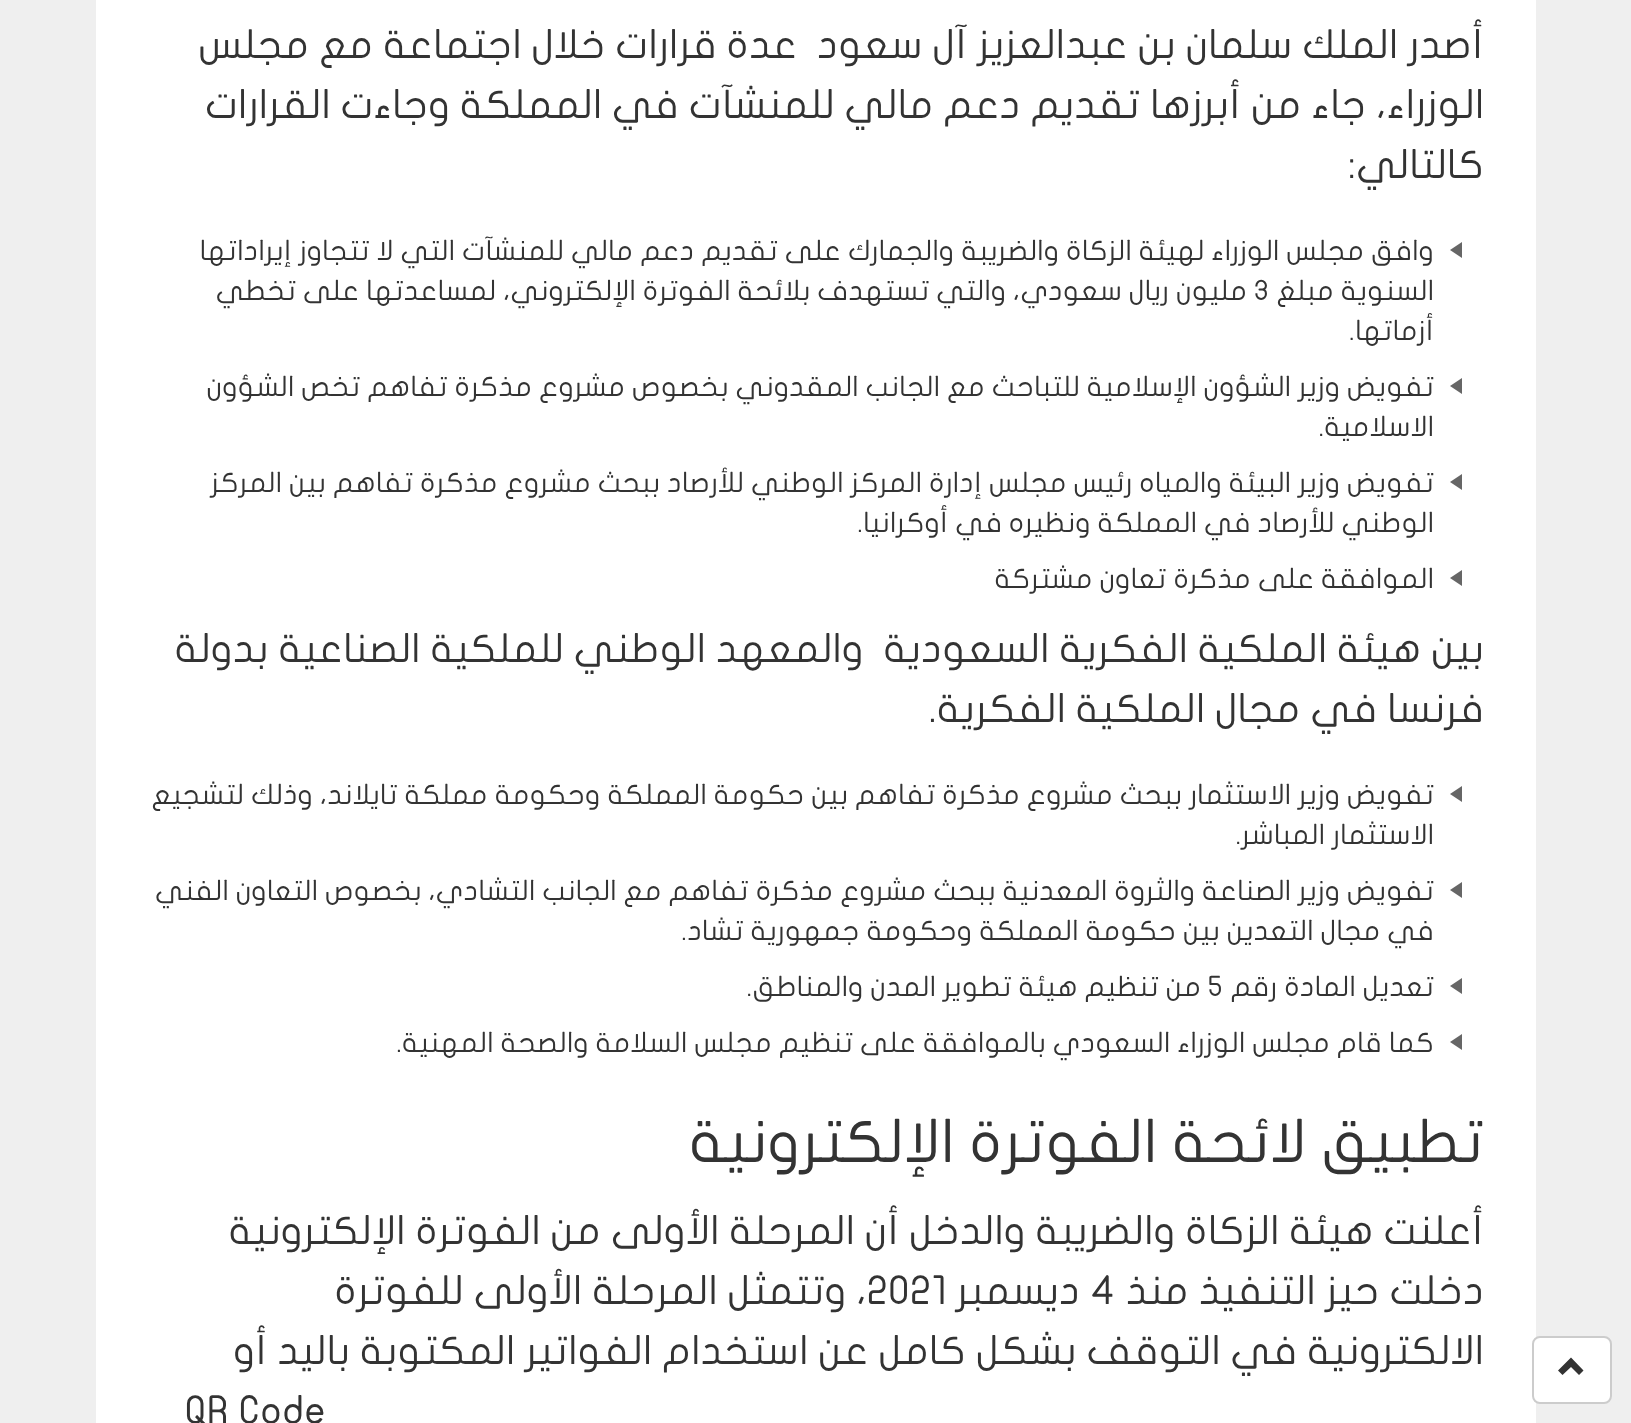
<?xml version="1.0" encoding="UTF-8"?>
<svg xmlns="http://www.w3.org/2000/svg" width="1631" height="1423">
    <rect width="100%" height="100%" fill="#EFEFEF"/>
    <rect x="96" y="0" width="1440" height="1423" fill="#FFFFFF"/>
    <rect x="1533" y="1337" width="78" height="66" rx="7" fill="#FFFFFF" stroke="#CCCCCC" stroke-width="2"/>
    <path d="M 1583.5 1370.5 L 1579 1375 L 1571 1367 L 1562.5 1375 L 1558 1370.5 L 1571 1357.5 Z" fill="#333333"/>
    <text font-family="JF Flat" font-size="40" direction="rtl" fill="#333333" xml:space="preserve"><tspan x="1484" y="58">أصدر الملك سلمان بن عبدالعزيز آل سعود  عدة قرارات خلال اجتماعة مع مجلس</tspan><tspan x="1484" y="118">الوزراء، جاء من أبرزها تقديم دعم مالي للمنشآت في المملكة وجاءت القرارات</tspan><tspan x="1484" y="178">كالتالي:</tspan></text>
    <path d="M 1462 242 V 258 L 1450 250 Z" fill="#666666"/>
    <text font-family="JF Flat" font-size="28" direction="rtl" fill="#333333">
        <tspan x="1434" y="260">وافق مجلس الوزراء لهيئة الزكاة والضريبة والجمارك على تقديم دعم مالي للمنشآت التي لا تتجاوز إيراداتها</tspan>
        <tspan x="1434" y="300">السنوية مبلغ</tspan>
    </text>
    <text x="1254" y="300" font-family="JF Flat" font-size="28" fill="#333333">3</text>
    <text x="1247" y="300" font-family="JF Flat" font-size="28" direction="rtl" fill="#333333">مليون ريال سعودي، والتي تستهدف بلائحة الفوترة الإلكتروني، لمساعدتها على تخطي</text>
    <text x="1434" y="340" font-family="JF Flat" font-size="28" direction="rtl" fill="#333333">أزماتها.</text>
    <path d="M 1462 378 V 394 L 1450 386 Z" fill="#666666"/>
    <text font-family="JF Flat" font-size="28" direction="rtl" fill="#333333">
        <tspan x="1434" y="396">تفويض وزير الشؤون الإسلامية للتباحث مع الجانب المقدوني بخصوص مشروع مذكرة تفاهم تخص الشؤون</tspan>
        <tspan x="1434" y="436">الاسلامية.</tspan>
    </text>
    <path d="M 1462 474 V 490 L 1450 482 Z" fill="#666666"/>
    <text font-family="JF Flat" font-size="28" direction="rtl" fill="#333333">
        <tspan x="1434" y="492">تفويض وزير البيئة والمياه رئيس مجلس إدارة المركز الوطني للأرصاد ببحث مشروع مذكرة تفاهم بين المركز</tspan>
        <tspan x="1434" y="532">الوطني للأرصاد في المملكة ونظيره في أوكرانيا.</tspan>
    </text>
    <path d="M 1462 570 V 586 L 1450 578 Z" fill="#666666"/>
    <text x="1434" y="588" font-family="JF Flat" font-size="28" direction="rtl" fill="#333333">الموافقة على مذكرة تعاون مشتركة</text>
    <text font-family="JF Flat" font-size="40" direction="rtl" fill="#333333" xml:space="preserve"><tspan x="1484" y="662">بين هيئة الملكية الفكرية السعودية  والمعهد الوطني للملكية الصناعية بدولة</tspan><tspan x="1484" y="722">فرنسا في مجال الملكية الفكرية.</tspan></text>
    <path d="M 1462 786 V 802 L 1450 794 Z" fill="#666666"/>
    <text font-family="JF Flat" font-size="28" direction="rtl" fill="#333333">
        <tspan x="1434" y="804">تفويض وزير الاستثمار ببحث مشروع مذكرة تفاهم بين حكومة المملكة وحكومة مملكة تايلاند، وذلك لتشجيع</tspan>
        <tspan x="1434" y="844">الاستثمار المباشر.</tspan>
    </text>
    <path d="M 1462 882 V 898 L 1450 890 Z" fill="#666666"/>
    <text font-family="JF Flat" font-size="28" direction="rtl" fill="#333333">
        <tspan x="1434" y="900">تفويض وزير الصناعة والثروة المعدنية ببحث مشروع مذكرة تفاهم مع الجانب التشادي، بخصوص التعاون الفني</tspan>
        <tspan x="1434" y="940">في مجال التعدين بين حكومة المملكة وحكومة جمهورية تشاد.</tspan>
    </text>
    <path d="M 1462 978 V 994 L 1450 986 Z" fill="#666666"/>
    <text x="1434" y="996" font-family="JF Flat" font-size="28" direction="rtl" fill="#333333">تعديل المادة رقم</text>
    <text x="1208" y="996" font-family="JF Flat" font-size="28" fill="#333333">5</text>
    <text x="1201" y="996" font-family="JF Flat" font-size="28" direction="rtl" fill="#333333">من تنظيم هيئة تطوير المدن والمناطق.</text>
    <path d="M 1462 1034 V 1050 L 1450 1042 Z" fill="#666666"/>
    <text x="1434" y="1052" font-family="JF Flat" font-size="28" direction="rtl" fill="#333333">كما قام مجلس الوزراء السعودي بالموافقة على تنظيم مجلس السلامة والصحة المهنية.</text>
    <text x="1484" y="1162" font-family="JF Flat" font-size="60" direction="rtl" fill="#333333">تطبيق لائحة الفوترة الإلكترونية</text>
    <text font-family="JF Flat" font-size="40" direction="rtl" fill="#333333">
        <tspan x="1484" y="1244">أعلنت هيئة الزكاة والضريبة والدخل أن المرحلة الأولى من الفوترة الإلكترونية</tspan>
        <tspan x="1484" y="1304">دخلت حيز التنفيذ منذ</tspan>
    </text>
    <text x="1090" y="1304" font-family="JF Flat" font-size="40" fill="#333333">4</text>
    <text x="1080" y="1304" font-family="JF Flat" font-size="40" direction="rtl" fill="#333333">ديسمبر</text>
    <text x="867" y="1304" font-family="JF Flat" font-size="40" fill="#333333">2021</text>
    <text x="867" y="1304" font-family="JF Flat" font-size="40" direction="rtl" fill="#333333">، وتتمثل المرحلة الأولى للفوترة</text>
    <text x="1484" y="1364" font-family="JF Flat" font-size="40" direction="rtl" fill="#333333">الالكترونية في التوقف بشكل كامل عن استخدام الفواتير المكتوبة باليد أو</text>
    <text x="185" y="1424" font-family="JF Flat" font-size="40" fill="#333333">QR Code</text>
</svg>
